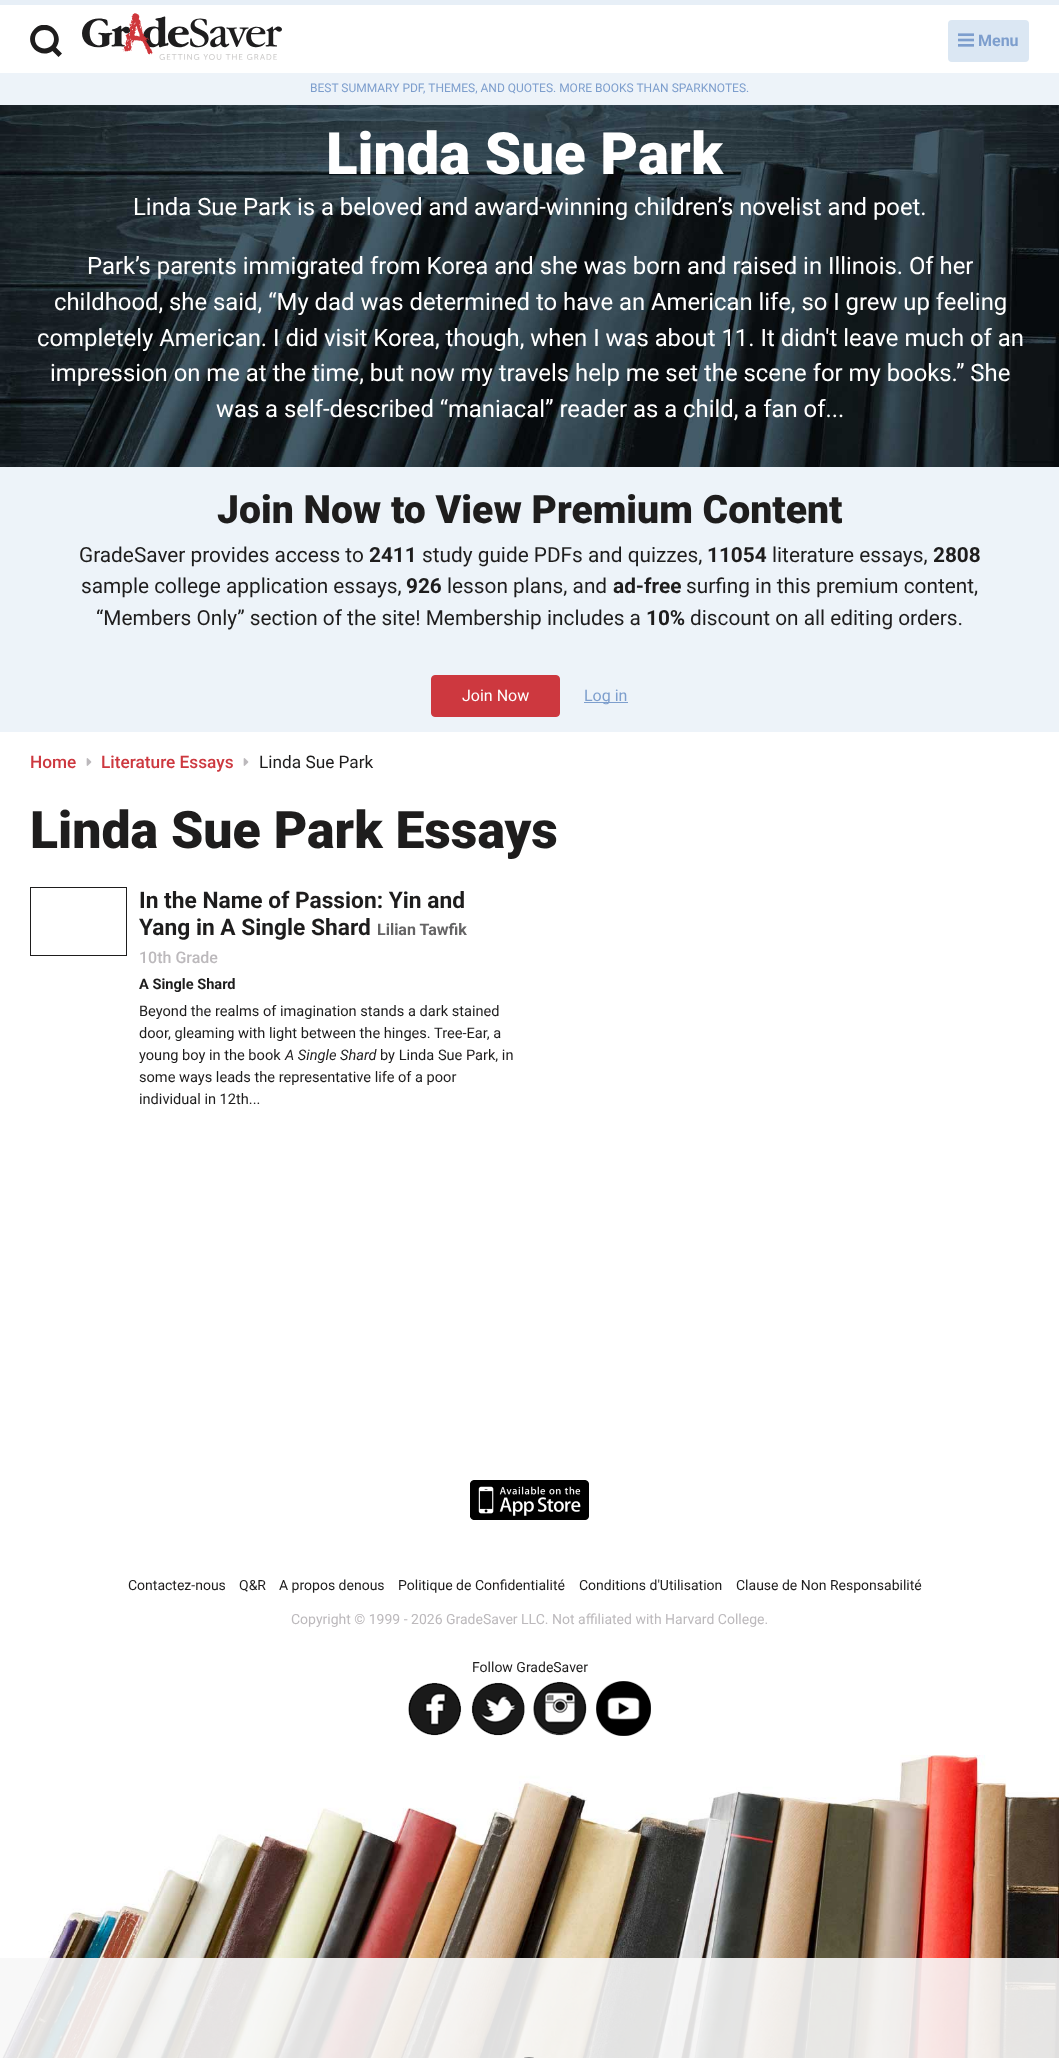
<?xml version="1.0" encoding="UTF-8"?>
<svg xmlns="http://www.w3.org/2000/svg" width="1059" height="2058">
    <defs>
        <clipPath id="clip1"><rect x="30" y="25" width="32" height="32"/></clipPath>
    </defs>
    <rect width="100%" height="100%" fill="#E7EFF7"/>
    <rect x="0" y="5" width="1059" height="1750" fill="#FFFFFF"/>
    <g clip-path="url(#clip1)">
        <path d="M 62 53.5 L 56 47.5 C 66 34 47 16.5 34.5 29 C 22 41.5 38.5 60.5 52.5 51 L 58.5 57 Z M 35 39 C 35 27 54 27 54 39 C 54 51.5 35 51.5 35 39 Z" fill="#1E1D1D"/>
    </g>
    <image x="82" y="13" width="200" height="47" href="img_01.png"/>
    <rect x="948" y="20" width="81" height="42" rx="4" fill="#DBE7F3"/>
    <image x="958" y="33" width="16" height="14" href="img_02.png"/>
    <text x="978" y="46" font-family="Roboto" font-size="16" font-weight="700" fill="#7D9ECD">Menu</text>
    <rect x="0" y="73" width="1059" height="32" fill="#EDF3F9"/>
    <text x="310" y="92" font-family="Roboto" font-size="12" fill="#7D9ECD">BEST SUMMARY PDF, THEMES, AND QUOTES. MORE BOOKS THAN SPARKNOTES.</text>
    <image x="0" y="105" width="1059" height="362" href="img_03.png"/>
    <text x="326" y="174" font-family="Roboto" font-size="58.25" font-weight="900" fill="#FFFFFF">Linda Sue Park</text>
    <text x="133" y="215" font-family="Roboto" font-size="23.85" fill="#FFFFFF">Linda Sue Park is a beloved and award-winning children’s novelist and poet.</text>
    <text x="87" y="274" font-family="Roboto" font-size="23.85" fill="#FFFFFF">Park’s parents immigrated from Korea and she was born and raised in Illinois. Of her</text>
    <text x="54" y="310" font-family="Roboto" font-size="23.85" fill="#FFFFFF">childhood, she said, “My dad was determined to have an American life, so I grew up feeling</text>
    <text x="37" y="346" font-family="Roboto" font-size="23.85" fill="#FFFFFF">completely American. I did visit Korea, though, when I was about 11. It didn't leave much of an</text>
    <text x="50" y="381" font-family="Roboto" font-size="23.85" fill="#FFFFFF">impression on me at the time, but now my travels help me set the scene for my books.” She</text>
    <text x="216" y="417" font-family="Roboto" font-size="23.85" fill="#FFFFFF">was a self-described “maniacal” reader as a child, a fan of...</text>
    <rect x="0" y="467" width="1059" height="265" fill="#EDF3F9"/>
    <text x="217" y="523" font-family="Roboto" font-size="39.1" font-weight="900" fill="#1E1D1D">Join Now to View Premium Content</text>
    <text x="79" y="562" font-family="Roboto" font-size="20.8" fill="#1E1D1D">GradeSaver provides access to</text>
    <text x="369" y="562" font-family="Roboto" font-size="20.8" font-weight="700" fill="#1E1D1D">2411</text>
    <text x="422" y="562" font-family="Roboto" font-size="20.8" fill="#1E1D1D">study guide PDFs and quizzes,</text>
    <text x="707" y="562" font-family="Roboto" font-size="20.8" font-weight="700" fill="#1E1D1D">11054</text>
    <text x="772" y="562" font-family="Roboto" font-size="20.8" fill="#1E1D1D">literature essays,</text>
    <text x="933" y="562" font-family="Roboto" font-size="20.8" font-weight="700" fill="#1E1D1D">2808</text>
    <text x="81" y="593" font-family="Roboto" font-size="20.8" fill="#1E1D1D">sample college application essays,</text>
    <text x="406" y="593" font-family="Roboto" font-size="20.8" font-weight="700" fill="#1E1D1D">926</text>
    <text x="447" y="593" font-family="Roboto" font-size="20.8" fill="#1E1D1D">lesson plans, and</text>
    <text x="613" y="593" font-family="Roboto" font-size="20.8" font-weight="700" fill="#1E1D1D">ad-free</text>
    <text x="686" y="593" font-family="Roboto" font-size="20.8" fill="#1E1D1D">surfing in this premium content,</text>
    <text x="96" y="625" font-family="Roboto" font-size="20.8" fill="#1E1D1D">“Members Only” section of the site! Membership includes a</text>
    <text x="646" y="625" font-family="Roboto" font-size="20.8" font-weight="700" fill="#1E1D1D">10%</text>
    <text x="690" y="625" font-family="Roboto" font-size="20.8" fill="#1E1D1D">discount on all editing orders.</text>
    <rect x="431.5" y="675.5" width="128" height="41" rx="3.5" fill="#CD383F" stroke="#CD383F"/>
    <text x="462" y="701" font-family="Roboto" font-size="16" fill="#FFFFFF">Join Now</text>
    <rect x="584" y="702" width="44" height="1" fill="#7D9ECD"/>
    <text x="584" y="701" font-family="Roboto" font-size="16" fill="#7D9ECD">Log in</text>
    <text x="30" y="768" font-family="Roboto" font-size="17.25" font-weight="500" fill="#CD383F">Home</text>
    <image x="86" y="758" width="6" height="8" href="img_04.png"/>
    <text x="101" y="768" font-family="Roboto" font-size="17.25" font-weight="500" fill="#CD383F">Literature Essays</text>
    <image x="243" y="758" width="6" height="8" href="img_04.png"/>
    <text x="259" y="768" font-family="Roboto" font-size="17.25" fill="#1E1D1D">Linda Sue Park</text>
    <text x="30" y="848" font-family="Roboto" font-size="51.75" font-weight="900" fill="#1E1D1D">Linda Sue Park Essays</text>
    <rect x="30.5" y="887.5" width="96" height="68" fill="none" stroke="#1E1D1D"/>
    <text font-family="Roboto" font-size="22.75" font-weight="700" fill="#1E1D1D">
        <tspan x="139" y="908">In the Name of Passion: Yin and</tspan>
        <tspan x="139" y="935">Yang in A Single Shard</tspan>
    </text>
    <text x="377" y="935" font-family="Roboto" font-size="16" font-weight="700" fill="#656465">Lilian Tawfik</text>
    <text x="139" y="963" font-family="Roboto" font-size="16" font-weight="500" fill="#BCB9BC">10th Grade</text>
    <text x="139" y="989" font-family="Roboto" font-size="14.6" font-weight="700" fill="#1E1D1D">A Single Shard</text>
    <text font-family="Roboto" font-size="14.6" fill="#1E1D1D">
        <tspan x="139" y="1016">Beyond the realms of imagination stands a dark stained</tspan>
        <tspan x="139" y="1038">door, gleaming with light between the hinges. Tree-Ear, a</tspan>
        <tspan x="139" y="1060">young boy in the book</tspan>
    </text>
    <text x="285" y="1060" font-family="Roboto" font-size="14.6" font-style="italic" fill="#1E1D1D">A Single Shard</text>
    <text x="380" y="1060" font-family="Roboto" font-size="14.6" fill="#1E1D1D">by Linda Sue Park, in</text>
    <text font-family="Roboto" font-size="14.6" fill="#1E1D1D">
        <tspan x="139" y="1082">some ways leads the representative life of a poor</tspan>
        <tspan x="139" y="1104">individual in 12th...</tspan>
    </text>
    <image x="470" y="1480" width="119" height="40" href="img_05.png"/>
    <text x="128" y="1590" font-family="Roboto" font-size="14" fill="#1E1D1D">Contactez-nous</text>
    <text x="239" y="1590" font-family="Roboto" font-size="14" fill="#1E1D1D">Q&amp;R</text>
    <text x="279" y="1590" font-family="Roboto" font-size="14" fill="#1E1D1D">A propos denous</text>
    <text x="398" y="1590" font-family="Roboto" font-size="14" fill="#1E1D1D">Politique de Confidentialité</text>
    <text x="579" y="1590" font-family="Roboto" font-size="14" fill="#1E1D1D">Conditions d'Utilisation</text>
    <text x="736" y="1590" font-family="Roboto" font-size="14" fill="#1E1D1D">Clause de Non Responsabilité</text>
    <text x="291" y="1624" font-family="Roboto" font-size="14" fill="#BCB9BC">Copyright © 1999 - 2026 GradeSaver LLC. Not affiliated with Harvard College.</text>
    <text x="472" y="1672" font-family="Roboto" font-size="14" fill="#1E1D1D">Follow GradeSaver</text>
    <image x="408" y="1682" width="54" height="54" href="img_06.png"/>
    <image x="471" y="1682" width="54" height="54" href="img_07.png"/>
    <image x="533" y="1681" width="54" height="55" href="img_08.png"/>
    <image x="596" y="1681" width="55" height="55" href="img_09.png"/>
    <image x="0" y="1755" width="1059" height="303" href="img_10.png"/>
    <rect x="0" y="1958" width="1059" height="100" fill="#F7F7F7" fill-opacity="0.9"/>
    <rect x="518.5" y="2057.5" width="21" height="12" rx="10.5" fill="none" stroke="#F6F6F5"/>
    <rect x="518.5" y="2057.5" width="21" height="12" rx="10.5" fill="none" stroke="#888888"/>
</svg>
